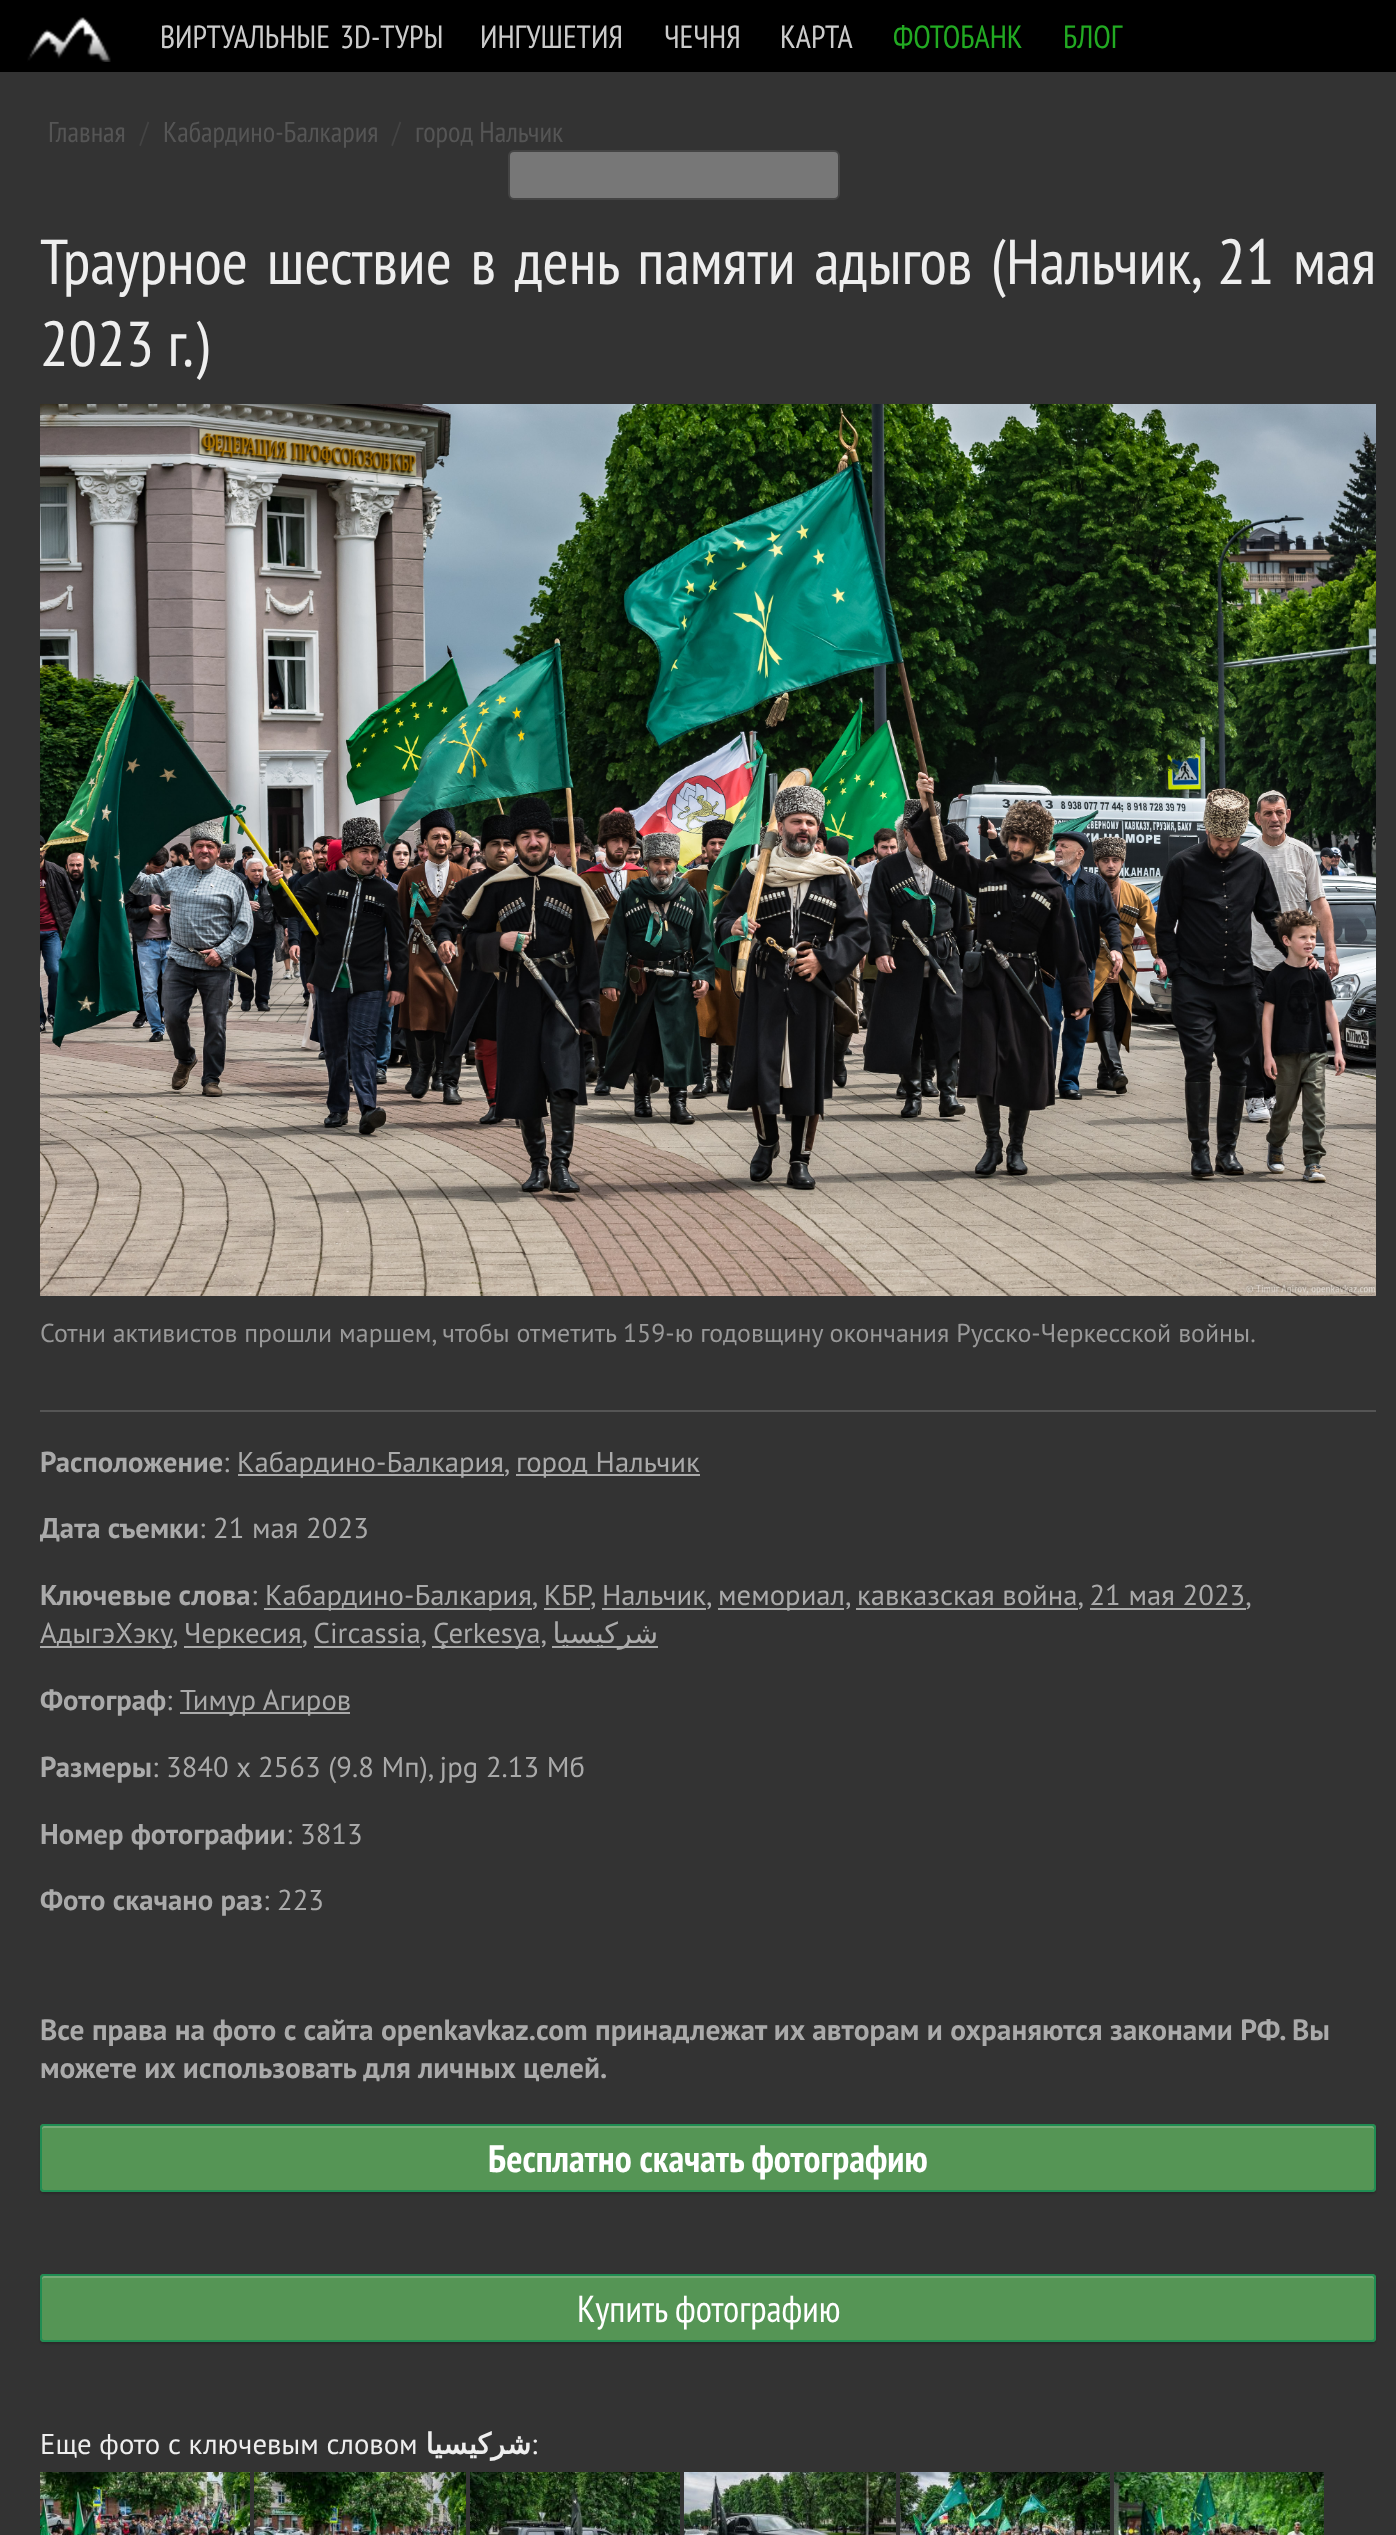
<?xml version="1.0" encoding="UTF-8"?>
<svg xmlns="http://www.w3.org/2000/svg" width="1396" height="2535">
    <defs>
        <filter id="blur1" x="-50%" y="-200%" width="200%" height="500%"><feGaussianBlur stdDeviation="1"/></filter>
    </defs>
    <rect width="100%" height="100%" fill="#000000"/>
    <image x="27" y="17" width="84" height="45" href="img_01.png"/>
    <text x="160" y="48" word-spacing="3" font-family="PT Sans Narrow" font-size="32" fill="#CCCCCC">ВИРТУАЛЬНЫЕ 3D-ТУРЫ</text>
    <text x="480" y="48" font-family="PT Sans Narrow" font-size="32" fill="#CCCCCC">ИНГУШЕТИЯ</text>
    <text x="664" y="48" font-family="PT Sans Narrow" font-size="32" fill="#CCCCCC">ЧЕЧНЯ</text>
    <text x="780" y="48" font-family="PT Sans Narrow" font-size="32" fill="#CCCCCC">КАРТА</text>
    <text x="893" y="48" font-family="PT Sans Narrow" font-size="32" fill="#22AA22">ФОТОБАНК</text>
    <text x="1063" y="48" font-family="PT Sans Narrow" font-size="32" fill="#22AA22">БЛОГ</text>
    <rect x="0" y="72" width="1396" height="2463" fill="#333333"/>
    <text x="48" y="142" font-family="PT Sans Narrow" font-size="28.75" fill="#555555">Главная</text>
    <text x="140" y="142" font-family="PT Sans Narrow" font-size="28.75" fill="#444444">/</text>
    <text x="163" y="142" font-family="PT Sans Narrow" font-size="28.75" fill="#555555">Кабардино-Балкария</text>
    <text x="392" y="142" font-family="PT Sans Narrow" font-size="28.75" fill="#444444">/</text>
    <text x="415" y="142" font-family="PT Sans Narrow" font-size="28.75" fill="#555555">город Нальчик</text>
    <rect x="509" y="151" width="330" height="48" rx="5" fill="#777777" stroke="#444444" stroke-width="2"/>
    <text font-family="PT Sans Narrow" font-size="63.4" fill="#EEEEEE">
        <tspan x="40" y="284" word-spacing="5.25">Траурное шествие в день памяти адыгов (Нальчик, 21 мая</tspan>
        <tspan x="40" y="366">2023 г.)</tspan>
    </text>
    <image x="40" y="404" width="1336" height="892" href="img_02.png"/>
    <text x="40" y="1342" font-family="PT Sans" font-size="25.9" fill="#999999">Сотни активистов прошли маршем, чтобы отметить 159-ю годовщину окончания Русско-Черкесской войны.</text>
    <rect x="40" y="1410" width="1336" height="2" fill="#555555"/>
    <text x="40" y="1472" font-family="PT Sans" font-size="28.75" font-weight="700" fill="#AAAAAA">Расположение</text>
    <text x="223" y="1472" font-family="PT Sans" font-size="28.75" fill="#AAAAAA">:</text>
    <rect x="238" y="1474" width="266" height="2" fill="#AAAAAA"/>
    <text x="237" y="1472" font-family="PT Sans" font-size="28.75" fill="#AAAAAA">Кабардино-Балкария,</text>
    <rect x="516" y="1474" width="184" height="2" fill="#AAAAAA"/>
    <text x="516" y="1472" font-family="PT Sans" font-size="28.75" fill="#AAAAAA">город Нальчик</text>
    <text x="40" y="1538" font-family="PT Sans" font-size="28.75" font-weight="700" fill="#AAAAAA">Дата съемки</text>
    <text x="199" y="1538" font-family="PT Sans" font-size="28.75" fill="#AAAAAA">: 21 мая 2023</text>
    <text x="40" y="1605" font-family="PT Sans" font-size="28.75" font-weight="700" fill="#AAAAAA">Ключевые слова</text>
    <text x="251" y="1605" font-family="PT Sans" font-size="28.75" fill="#AAAAAA">:</text>
    <rect x="264" y="1608" width="268" height="2" fill="#AAAAAA"/>
    <text x="265" y="1605" font-family="PT Sans" font-size="28.75" fill="#AAAAAA">Кабардино-Балкария, КБР</text>
    <text x="590" y="1605" font-family="PT Sans" font-size="28.75" fill="#AAAAAA">, Нальчик,</text>
    <rect x="718" y="1608" width="126" height="2" fill="#AAAAAA"/>
    <text x="718" y="1605" font-family="PT Sans" font-size="28.75" fill="#AAAAAA">мемориал, кавказская война, 21 мая 2023,</text>
    <rect x="544" y="1608" width="46" height="2" fill="#AAAAAA"/>
    <rect x="602" y="1608" width="104" height="2" fill="#AAAAAA"/>
    <rect x="856" y="1608" width="222" height="2" fill="#AAAAAA"/>
    <rect x="1090" y="1608" width="156" height="2" fill="#AAAAAA"/>
    <rect x="40" y="1646" width="132" height="2" fill="#AAAAAA"/>
    <text x="40" y="1643" font-family="PT Sans" font-size="28.75" fill="#AAAAAA">АдыгэХэку</text>
    <text x="172" y="1643" font-family="PT Sans" font-size="28.75" fill="#AAAAAA">,</text>
    <rect x="184" y="1646" width="118" height="2" fill="#AAAAAA"/>
    <text x="184" y="1643" font-family="PT Sans" font-size="28.75" fill="#AAAAAA">Черкесия, Circassia,</text>
    <rect x="432" y="1646" width="108" height="2" fill="#AAAAAA"/>
    <text x="433" y="1643" font-family="PT Sans" font-size="28.75" fill="#AAAAAA">Çerkesya,</text>
    <rect x="552" y="1646" width="106" height="2" fill="#AAAAAA"/>
    <text x="658" y="1643" font-family="DejaVu Sans" font-size="28.75" direction="rtl" fill="#AAAAAA">شركيسيا</text>
    <rect x="314" y="1646" width="106" height="2" fill="#AAAAAA"/>
    <text x="40" y="1710" font-family="PT Sans" font-size="28.75" font-weight="700" fill="#AAAAAA">Фотограф</text>
    <text x="166" y="1710" font-family="PT Sans" font-size="28.75" fill="#AAAAAA">:</text>
    <rect x="180" y="1712" width="170" height="2" fill="#AAAAAA"/>
    <text x="180" y="1710" font-family="PT Sans" font-size="28.75" fill="#AAAAAA">Тимур Агиров</text>
    <text x="40" y="1777" font-family="PT Sans" font-size="28.75" font-weight="700" fill="#AAAAAA">Размеры</text>
    <text x="152" y="1777" font-family="PT Sans" font-size="28.75" fill="#AAAAAA">: 3840 x 2563 (9.8 Мп), jpg 2.13 Мб</text>
    <text x="40" y="1844" font-family="PT Sans" font-size="28.75" font-weight="700" fill="#AAAAAA">Номер фотографии</text>
    <text x="286" y="1844" font-family="PT Sans" font-size="28.75" fill="#AAAAAA">: 3813</text>
    <text x="40" y="1910" font-family="PT Sans" font-size="28.75" font-weight="700" fill="#AAAAAA">Фото скачано раз</text>
    <text x="263" y="1910" font-family="PT Sans" font-size="28.75" fill="#AAAAAA">: 223</text>
    <text font-family="PT Sans" font-size="29.35" font-weight="700" fill="#AAAAAA">
        <tspan x="40" y="2040">Все права на фото с сайта openkavkaz.com принадлежат их авторам и охраняются законами РФ. Вы</tspan>
        <tspan x="40" y="2078">можете их использовать для личных целей.</tspan>
    </text>
    <rect x="40" y="2126" width="1336" height="68" rx="4" fill="#000000" fill-opacity="0.2" filter="url(#blur1)"/>
    <rect x="40" y="2124" width="1336" height="68" rx="4" fill="#559555"/>
    <path d="M 44 2128 H 1372 C 1373 2128 1374 2129 1374 2130 C 1374 2128 1374 2126 1372 2126 H 44 C 42 2126 42 2128 42 2130 C 42 2129 43 2128 44 2128 Z" fill="#77AA77"/>
    <rect x="41" y="2125" width="1334" height="66" rx="3" fill="none" stroke="#208D53" stroke-width="2"/>
    <text x="488" y="2172" font-family="PT Sans Narrow" font-size="38.1" font-weight="700" fill="#FFFFFF">Бесплатно скачать фотографию</text>
    <rect x="40" y="2276" width="1336" height="68" rx="4" fill="#000000" fill-opacity="0.2" filter="url(#blur1)"/>
    <rect x="40" y="2274" width="1336" height="68" rx="4" fill="#559555"/>
    <path d="M 44 2278 H 1372 C 1373 2278 1374 2279 1374 2280 C 1374 2278 1374 2276 1372 2276 H 44 C 42 2276 42 2278 42 2280 C 42 2279 43 2278 44 2278 Z" fill="#77AA77"/>
    <rect x="41" y="2275" width="1334" height="66" rx="3" fill="none" stroke="#208D53" stroke-width="2"/>
    <text x="577" y="2322" font-family="PT Sans Narrow" font-size="37.5" fill="#FFFFFF">Купить фотографию</text>
    <text x="40" y="2454" font-family="PT Sans" font-size="28.75" fill="#EEEEEE">Еще фото с ключевым словом</text>
    <text x="531" y="2454" font-family="DejaVu Sans" font-size="28.75" font-weight="700" direction="rtl" fill="#EEEEEE">شركيسيا</text>
    <text x="531" y="2454" font-family="PT Sans" font-size="28.75" fill="#EEEEEE">:</text>
    <image x="40" y="2472" width="210" height="63" href="img_03.png"/>
    <image x="254" y="2472" width="212" height="63" href="img_04.png"/>
    <image x="470" y="2472" width="210" height="63" href="img_05.png"/>
    <image x="684" y="2472" width="212" height="63" href="img_06.png"/>
    <image x="900" y="2472" width="210" height="63" href="img_07.png"/>
    <image x="1114" y="2472" width="210" height="63" href="img_08.png"/>
</svg>
